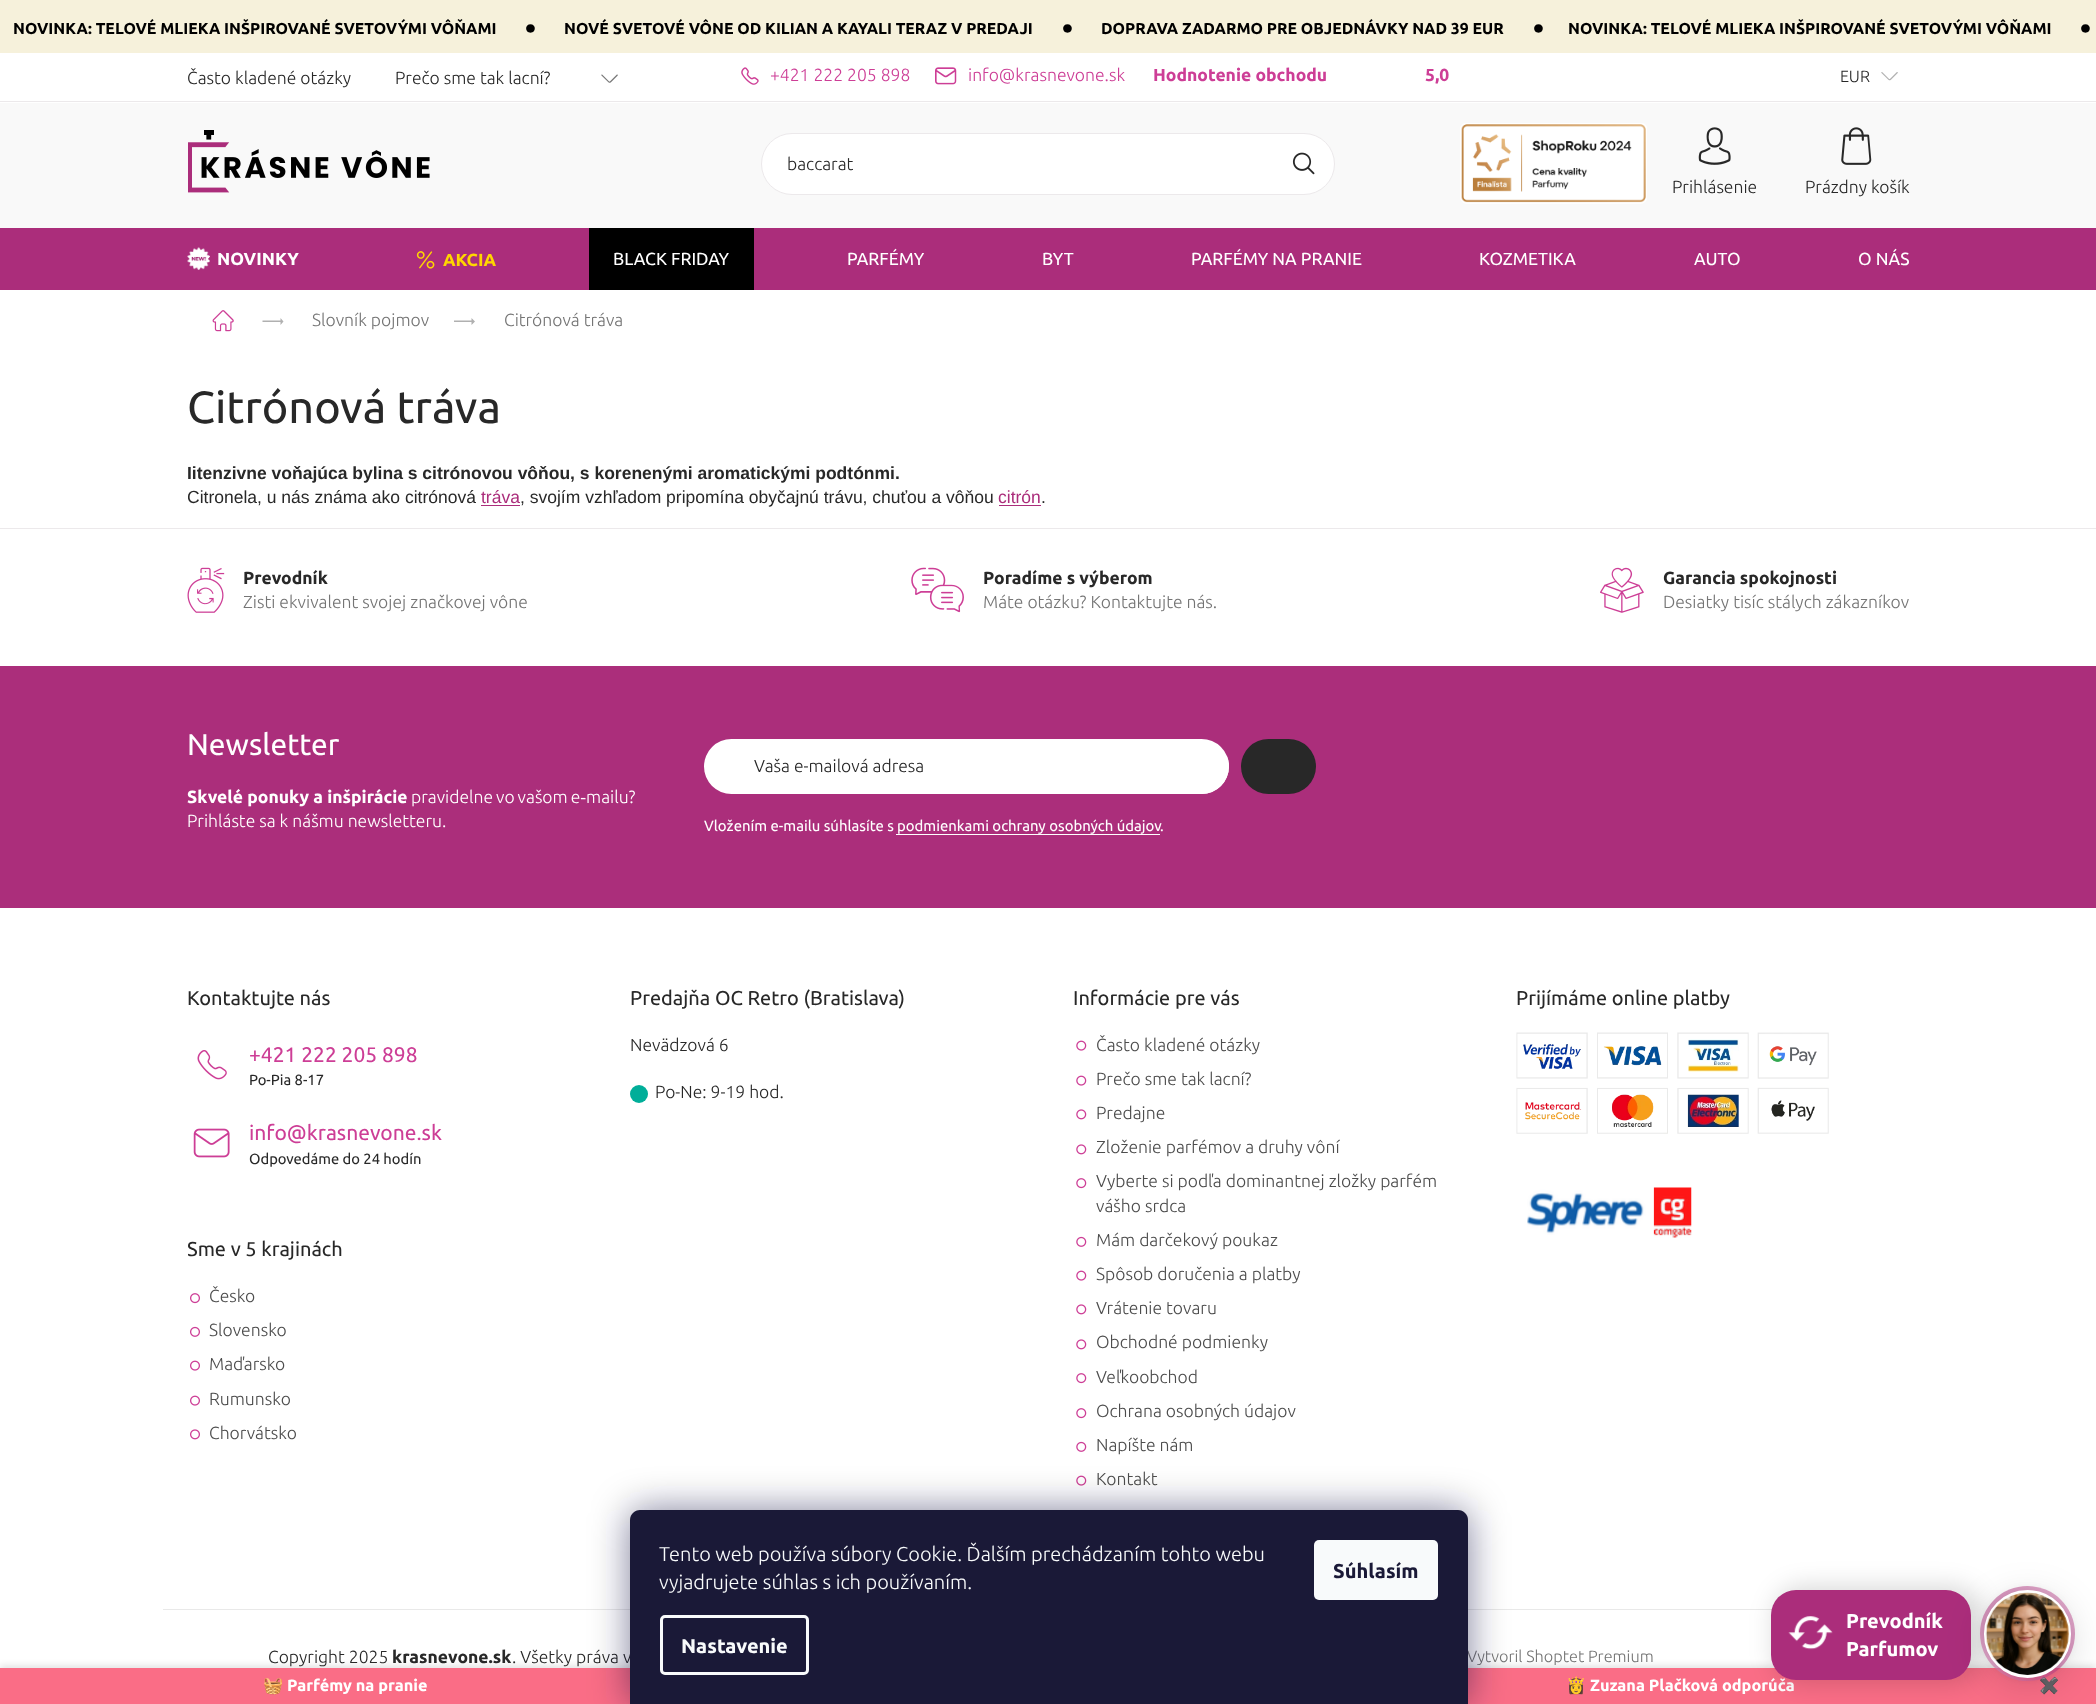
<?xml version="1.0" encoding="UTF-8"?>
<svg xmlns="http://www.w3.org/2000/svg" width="2096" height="1704">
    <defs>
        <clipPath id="clip1"><rect x="188" y="461" width="1722" height="49"/></clipPath>
        <clipPath id="clip2"><rect x="704" y="739" width="525" height="55" rx="27.5"/></clipPath>
        <clipPath id="clip3"><rect x="188" y="988" width="392" height="483"/></clipPath>
        <filter id="blur1" x="-50%" y="-200%" width="200%" height="500%"><feGaussianBlur stdDeviation="3"/></filter>
        <filter id="blur2" x="-50%" y="-200%" width="200%" height="500%"><feGaussianBlur stdDeviation="19"/></filter>
        <filter id="blur3" x="-50%" y="-200%" width="200%" height="500%"><feGaussianBlur stdDeviation="12.5"/></filter>
        <filter id="blur4" x="-50%" y="-200%" width="200%" height="500%"><feGaussianBlur stdDeviation="4"/></filter>
        <linearGradient id="g1" gradientUnits="userSpaceOnUse" x1="1980" y1="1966" x2="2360" y2="1586"><stop offset="0" stop-color="#AC2E7B" stop-opacity="0.5"/><stop offset="0.25" stop-color="#FFFFFF"/><stop offset="0.5" stop-color="#AC2E7B" stop-opacity="0.5"/><stop offset="0.75" stop-color="#FFFFFF"/><stop offset="1" stop-color="#AC2E7B" stop-opacity="0.5"/></linearGradient>
    </defs>
    <rect width="100%" height="100%" fill="#FFFFFF"/>
    <rect x="0" y="0" width="2096" height="53" fill="#F6F1DB"/>
    <text x="13" y="34" font-family="Ubuntu" font-size="15.75" font-weight="700" fill="#000000">NOVINKA: TELOVÉ MLIEKA INŠPIROVANÉ SVETOVÝMI VÔŇAMI</text>
    <text x="525" y="39" font-family="Ubuntu" font-size="30" font-weight="700" fill="#000000">•</text>
    <text x="564" y="34" font-family="Ubuntu" font-size="15.75" font-weight="700" fill="#000000">NOVÉ SVETOVÉ VÔNE OD KILIAN A KAYALI TERAZ V PREDAJI</text>
    <text x="1062" y="39" font-family="Ubuntu" font-size="30" font-weight="700" fill="#000000">•</text>
    <text x="1101" y="34" font-family="Ubuntu" font-size="15.75" font-weight="700" fill="#000000">DOPRAVA ZADARMO PRE OBJEDNÁVKY NAD 39 EUR</text>
    <text x="1533" y="39" font-family="Ubuntu" font-size="30" font-weight="700" fill="#000000">•</text>
    <text x="1568" y="34" font-family="Ubuntu" font-size="15.75" font-weight="700" fill="#000000">NOVINKA: TELOVÉ MLIEKA INŠPIROVANÉ SVETOVÝMI VÔŇAMI</text>
    <text x="2080" y="39" font-family="Ubuntu" font-size="30" font-weight="700" fill="#000000">•</text>
    <rect x="0" y="101" width="2096" height="1" fill="#ECE9EB"/>
    <text x="187" y="84" font-family="Ubuntu" font-size="17.5" font-weight="300" fill="#282828">Často kladené otázky</text>
    <text x="395" y="84" font-family="Ubuntu" font-size="17.5" font-weight="300" fill="#282828">Prečo sme tak lacní?</text>
    <image x="601" y="74" width="17" height="9" href="img_01.png"/>
    <image x="741" y="67" width="18" height="18" href="img_02.png"/>
    <text x="770" y="81" font-family="Ubuntu" font-size="17.5" font-weight="300" fill="#CD3E96">+421 222 205 898</text>
    <image x="935" y="67" width="22" height="18" href="img_03.png"/>
    <text x="968" y="81" font-family="Ubuntu" font-size="17.5" font-weight="300" fill="#CD3E96">info@krasnevone.sk</text>
    <text x="1153" y="81" font-family="Ubuntu" font-size="17.5" font-weight="700" fill="#CD3E96">Hodnotenie obchodu</text>
    <text x="1425" y="81" font-family="Ubuntu" font-size="17.5" font-weight="700" fill="#CD3E96">5,0</text>
    <text x="1840" y="82" font-family="Ubuntu" font-size="16.25" font-weight="300" fill="#282828">EUR</text>
    <image x="1881" y="72" width="17" height="9" href="img_04.png"/>
    <rect x="0" y="103" width="2096" height="125" fill="#F9F9F9"/>
    <rect x="0" y="228" width="2096" height="62" fill="#AB2D7B"/>
    <image x="188" y="130" width="242" height="63" href="img_05.png"/>
    <rect x="761.5" y="133.5" width="573" height="61" rx="30.5" fill="#FFFFFF" stroke="#ECE9EB"/>
    <text x="787" y="170" font-family="Ubuntu" font-size="17.5" font-weight="300" fill="#282828">baccarat</text>
    <image x="1292" y="152" width="23" height="23" href="img_06.png"/>
    <image x="1460" y="123" width="187" height="81" href="img_07.png"/>
    <image x="1698" y="127" width="33" height="38" href="img_08.png"/>
    <text x="1672" y="193" font-family="Ubuntu" font-size="17.5" font-weight="300" fill="#282828">Prihlásenie</text>
    <image x="1841" y="127" width="31" height="38" href="img_09.png"/>
    <text x="1805" y="193" font-family="Ubuntu" font-size="17.5" font-weight="300" fill="#282828">Prázdny košík</text>
    <image x="187" y="247" width="23" height="23" href="img_10.png"/>
    <text x="217" y="265" font-family="Ubuntu" font-size="17.5" font-weight="700" fill="#FFFFFF">NOVINKY</text>
    <image x="416" y="251" width="19" height="18" href="img_11.png"/>
    <text x="443" y="266" font-family="Ubuntu" font-size="17.5" font-weight="700" fill="#FFD600">AKCIA</text>
    <rect x="589" y="228" width="165" height="62" fill="#000000"/>
    <text x="613" y="265" font-family="Ubuntu" font-size="17.5" fill="#FFFFFF">BLACK FRIDAY</text>
    <text x="847" y="265" font-family="Ubuntu" font-size="17.5" fill="#FFFFFF">PARFÉMY</text>
    <text x="1042" y="265" font-family="Ubuntu" font-size="17.5" fill="#FFFFFF">BYT</text>
    <text x="1191" y="265" font-family="Ubuntu" font-size="17.5" fill="#FFFFFF">PARFÉMY NA PRANIE</text>
    <text x="1479" y="265" font-family="Ubuntu" font-size="17.5" fill="#FFFFFF">KOZMETIKA</text>
    <text x="1694" y="265" font-family="Ubuntu" font-size="17.5" fill="#FFFFFF">AUTO</text>
    <text x="1858" y="265" font-family="Ubuntu" font-size="17.5" fill="#FFFFFF">O NÁS</text>
    <image x="212" y="310" width="22" height="22" href="img_12.png"/>
    <path d="M 283.5 321.5 L 280.5 318 V 320.5 H 262.5 V 322 H 280.5 V 325 Z" fill="#B0B0B0"/>
    <text x="312" y="326" font-family="Ubuntu" font-size="17.5" font-weight="300" fill="#757575">Slovník pojmov</text>
    <path d="M 475 321.5 L 471.5 318 V 320.5 H 454 V 322 H 471.5 V 325 Z" fill="#B0B0B0"/>
    <text x="504" y="326" font-family="Ubuntu" font-size="17.5" font-weight="300" fill="#757575">Citrónová tráva</text>
    <text x="187" y="423" font-family="Ubuntu" font-size="45" fill="#282828">Citrónová tráva</text>
    <text x="187" y="479" font-family="Liberation Sans" font-size="17.5" font-weight="700" fill="#282828">Iitenzivne voňajúca bylina s citrónovou vôňou, s korenenými aromatickými podtónmi.</text>
    <g clip-path="url(#clip1)">
        <text x="187" y="503" font-family="Liberation Sans" font-size="17.5" fill="#282828">Citronela, u nás známa ako citrónová</text>
    </g>
    <text x="481" y="503" font-family="Liberation Sans" font-size="17.5" fill="#AB2D7B">tráva</text>
    <text x="520" y="503" font-family="Liberation Sans" font-size="17.5" fill="#282828">, svojím vzhľadom pripomína obyčajnú trávu, chuťou a vôňou</text>
    <rect x="481" y="505" width="39" height="1" fill="#AB2D7B"/>
    <text x="998" y="503" font-family="Liberation Sans" font-size="17.5" fill="#AB2D7B">citrón</text>
    <text x="1041" y="503" font-family="Liberation Sans" font-size="17.5" fill="#282828">.</text>
    <rect x="999" y="505" width="42" height="1" fill="#AB2D7B"/>
    <rect x="0" y="528" width="2096" height="1" fill="#ECE9EB"/>
    <image x="187" y="567" width="38" height="46" href="img_13.png"/>
    <text x="243" y="584" font-family="Ubuntu" font-size="17.5" font-weight="700" fill="#282828">Prevodník</text>
    <text x="243" y="608" font-family="Ubuntu" font-size="17.5" font-weight="300" fill="#757575">Zisti ekvivalent svojej značkovej vône</text>
    <image x="911" y="567" width="53" height="46" href="img_14.png"/>
    <text x="983" y="584" font-family="Ubuntu" font-size="17.5" font-weight="700" fill="#282828">Poradíme s výberom</text>
    <text x="983" y="608" font-family="Ubuntu" font-size="17.5" font-weight="300" fill="#757575">Máte otázku? Kontaktujte nás.</text>
    <image x="1600" y="567" width="44" height="46" href="img_15.png"/>
    <text x="1663" y="584" font-family="Ubuntu" font-size="17.5" font-weight="700" fill="#282828">Garancia spokojnosti</text>
    <text x="1663" y="608" font-family="Ubuntu" font-size="17.5" font-weight="300" fill="#757575">Desiatky tisíc stálych zákazníkov</text>
    <rect x="0" y="666" width="2096" height="242" fill="#AB2E7B"/>
    <text x="187" y="755" font-family="Ubuntu" font-size="30" fill="#FFFFFF">Newsletter</text>
    <text x="187" y="803" font-family="Ubuntu" font-size="17.5" font-weight="700" fill="#FFFFFF">Skvelé ponuky a inšpirácie</text>
    <text x="411" y="803" word-spacing="-1" font-family="Ubuntu" font-size="17.5" font-weight="300" fill="#FFFFFF">pravidelne vo vašom e‑mailu?</text>
    <text x="187" y="827" font-family="Ubuntu" font-size="17.5" font-weight="300" fill="#FFFFFF">Prihláste sa k nášmu newsletteru.</text>
    <rect x="704" y="739" width="525" height="55" rx="27.5" fill="#FFFFFF"/>
    <g clip-path="url(#clip2)">
        <rect x="729" y="756" width="575" height="55" rx="27.5" fill="#FFFFFF"/>
    </g>
    <text x="754" y="772" font-family="Ubuntu" font-size="17.5" font-weight="300" fill="#282828">Vaša e-mailová adresa</text>
    <rect x="1241" y="739" width="75" height="55" rx="27.5" fill="#282828"/>
    <text x="704" y="831" font-family="Ubuntu" font-size="14.9" fill="#FFFFFF">Vložením e-mailu súhlasíte s</text>
    <text x="897" y="831" font-family="Ubuntu" font-size="14.9" fill="#FFFFFF">podmienkami ochrany osobných údajov</text>
    <text x="1160" y="831" font-family="Ubuntu" font-size="14.9" fill="#FFFFFF">.</text>
    <rect x="896" y="834" width="264" height="1" fill="#FFFFFF"/>
    <text x="187" y="1005" font-family="Ubuntu" font-size="20" fill="#282828">Kontaktujte nás</text>
    <image x="197" y="1050" width="30" height="30" href="img_16.png"/>
    <text x="249" y="1062" font-family="Ubuntu" font-size="21" fill="#CD3E96">+421 222 205 898</text>
    <text x="249" y="1085" font-family="Ubuntu" font-size="14.75" fill="#282828">Po-Pia 8-17</text>
    <image x="193" y="1128" width="37" height="30" href="img_17.png"/>
    <text x="249" y="1140" font-family="Ubuntu" font-size="21" fill="#CD3E96">info@krasnevone.sk</text>
    <text x="249" y="1164" font-family="Ubuntu" font-size="14.75" fill="#282828">Odpovedáme do 24 hodín</text>
    <g clip-path="url(#clip3)">
        <text x="187" y="1256" font-family="Ubuntu" font-size="20" fill="#282828">Sme v 5 krajinách</text>
    </g>
    <image x="190" y="1293" width="10" height="11" href="img_18.png"/>
    <text x="209" y="1302" font-family="Ubuntu" font-size="17.5" font-weight="300" fill="#4D4D4D">Česko</text>
    <image x="190" y="1326" width="10" height="11" href="img_19.png"/>
    <text x="209" y="1336" font-family="Ubuntu" font-size="17.5" font-weight="300" fill="#4D4D4D">Slovensko</text>
    <image x="190" y="1360" width="10" height="11" href="img_20.png"/>
    <text x="209" y="1370" font-family="Ubuntu" font-size="17.5" font-weight="300" fill="#4D4D4D">Maďarsko</text>
    <image x="190" y="1395" width="10" height="11" href="img_20.png"/>
    <text x="209" y="1405" font-family="Ubuntu" font-size="17.5" font-weight="300" fill="#4D4D4D">Rumunsko</text>
    <image x="190" y="1429" width="10" height="11" href="img_21.png"/>
    <text x="209" y="1439" font-family="Ubuntu" font-size="17.5" font-weight="300" fill="#4D4D4D">Chorvátsko</text>
    <text x="630" y="1005" font-family="Ubuntu" font-size="20" fill="#282828">Predajňa OC Retro (Bratislava)</text>
    <text x="630" y="1051" font-family="Ubuntu" font-size="17.5" font-weight="300" fill="#282828">Nevädzová 6</text>
    <circle cx="639" cy="1094" r="9" fill="#00AE99"/>
    <text x="655" y="1098" font-family="Ubuntu" font-size="17.5" font-weight="300" fill="#282828">Po-Ne: 9-19 hod.</text>
    <text x="1073" y="1005" font-family="Ubuntu" font-size="20" fill="#282828">Informácie pre vás</text>
    <image x="1076" y="1040" width="11" height="11" href="img_22.png"/>
    <text x="1096" y="1051" font-family="Ubuntu" font-size="17.5" font-weight="300" fill="#4D4D4D">Často kladené otázky</text>
    <image x="1076" y="1075" width="11" height="11" href="img_22.png"/>
    <text x="1096" y="1085" font-family="Ubuntu" font-size="17.5" font-weight="300" fill="#4D4D4D">Prečo sme tak lacní?</text>
    <image x="1076" y="1109" width="11" height="11" href="img_23.png"/>
    <text x="1096" y="1119" font-family="Ubuntu" font-size="17.5" font-weight="300" fill="#4D4D4D">Predajne</text>
    <image x="1076" y="1144" width="11" height="11" href="img_23.png"/>
    <text x="1096" y="1153" font-family="Ubuntu" font-size="17.5" font-weight="300" fill="#4D4D4D">Zloženie parfémov a druhy vôní</text>
    <image x="1076" y="1178" width="11" height="11" href="img_24.png"/>
    <text font-family="Ubuntu" font-size="17.5" font-weight="300" fill="#4D4D4D">
        <tspan x="1096" y="1187">Vyberte si podľa dominantnej zložky parfém</tspan>
        <tspan x="1096" y="1212">vášho srdca</tspan>
    </text>
    <image x="1076" y="1236" width="11" height="11" href="img_25.png"/>
    <text x="1096" y="1246" font-family="Ubuntu" font-size="17.5" font-weight="300" fill="#4D4D4D">Mám darčekový poukaz</text>
    <image x="1076" y="1270" width="11" height="11" href="img_22.png"/>
    <text x="1096" y="1280" font-family="Ubuntu" font-size="17.5" font-weight="300" fill="#4D4D4D">Spôsob doručenia a platby</text>
    <image x="1076" y="1304" width="11" height="11" href="img_23.png"/>
    <text x="1096" y="1314" font-family="Ubuntu" font-size="17.5" font-weight="300" fill="#4D4D4D">Vrátenie tovaru</text>
    <image x="1076" y="1339" width="11" height="11" href="img_23.png"/>
    <text x="1096" y="1348" font-family="Ubuntu" font-size="17.5" font-weight="300" fill="#4D4D4D">Obchodné podmienky</text>
    <image x="1076" y="1373" width="11" height="11" href="img_24.png"/>
    <text x="1096" y="1383" font-family="Ubuntu" font-size="17.5" font-weight="300" fill="#4D4D4D">Veľkoobchod</text>
    <image x="1076" y="1408" width="11" height="11" href="img_24.png"/>
    <text x="1096" y="1417" font-family="Ubuntu" font-size="17.5" font-weight="300" fill="#4D4D4D">Ochrana osobných údajov</text>
    <image x="1076" y="1441" width="11" height="11" href="img_25.png"/>
    <text x="1096" y="1451" font-family="Ubuntu" font-size="17.5" font-weight="300" fill="#4D4D4D">Napíšte nám</text>
    <image x="1076" y="1475" width="11" height="11" href="img_22.png"/>
    <text x="1096" y="1485" font-family="Ubuntu" font-size="17.5" font-weight="300" fill="#4D4D4D">Kontakt</text>
    <text x="1516" y="1005" font-family="Ubuntu" font-size="20" fill="#282828">Prijímáme online platby</text>
    <image x="1516" y="1032" width="313" height="102" href="img_26.png"/>
    <image x="1653" y="1187" width="39" height="51" href="img_28.png"/>
    <image x="1527" y="1187" width="127" height="48" href="img_27.png"/>
    <rect x="0" y="1665" width="2096" height="38" fill="#000000" fill-opacity="0.1" filter="url(#blur1)"/>
    <rect x="0" y="1668" width="2096" height="36" fill="#FA6D86"/>
    <text x="263" y="1691" font-family="Noto Color Emoji" font-size="16.25" font-weight="700" fill="#FFFFFF">🧺</text>
    <text x="287" y="1691" font-family="Ubuntu" font-size="16.25" font-weight="700" fill="#FFFFFF">Parfémy na pranie</text>
    <text x="1566" y="1691" font-family="Noto Color Emoji" font-size="16.25" font-weight="700" fill="#FFFFFF">👸</text>
    <text x="1590" y="1691" font-family="Ubuntu" font-size="16.25" font-weight="700" fill="#FFFFFF">Zuzana Plačková odporúča</text>
    <text x="2039" y="1691" font-family="Noto Color Emoji" font-size="16.25" fill="#AB2D7B">✖️</text>
    <rect x="163" y="1609" width="1609" height="1" fill="#E9E9E9"/>
    <text x="268" y="1663" font-family="Ubuntu" font-size="17.5" font-weight="300" fill="#282828">Copyright 2025</text>
    <text x="392" y="1663" font-family="Ubuntu" font-size="17.5" font-weight="700" fill="#282828">krasnevone.sk</text>
    <text x="512" y="1663" font-family="Ubuntu" font-size="17.5" font-weight="300" fill="#282828">. Všetky práva v</text>
    <text x="1467" y="1662" font-family="Ubuntu" font-size="16.25" font-weight="300" fill="#757575">Vytvoril Shoptet Premium</text>
    <rect x="630" y="1510" width="838" height="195" rx="10" fill="#1B1939" fill-opacity="0.5" filter="url(#blur2)"/>
    <path d="M 640 1510 H 1458 C 1463.5 1510 1468 1514.5 1468 1520 V 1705 H 630 V 1520 C 630 1514.5 634.5 1510 640 1510 Z" fill="#1A1937"/>
    <text font-family="Ubuntu" font-size="20" font-weight="300" fill="#F8FAFB">
        <tspan x="659" y="1561">Tento web používa súbory Cookie. Ďalším prechádzaním tohto webu</tspan>
        <tspan x="659" y="1589">vyjadrujete súhlas s ich používaním.</tspan>
    </text>
    <rect x="661.5" y="1616.5" width="146" height="57" rx="3.5" fill="none" stroke="#F8FAFB" stroke-width="3"/>
    <text x="681" y="1653" font-family="Ubuntu" font-size="20" font-weight="700" fill="#F8FAFB">Nastavenie</text>
    <rect x="1314" y="1540" width="124" height="60" rx="5" fill="#F8FAFB"/>
    <text x="1333" y="1578" font-family="Ubuntu" font-size="20" font-weight="700" fill="#1A1937">Súhlasím</text>
    <rect x="1774" y="1586" width="207" height="98" rx="29" fill="#000000" fill-opacity="0.15" filter="url(#blur3)"/>
    <rect x="1771" y="1590" width="200" height="90" rx="25" fill="#AB2D7B"/>
    <image x="1788" y="1616" width="45" height="34" href="img_29.png"/>
    <text font-family="Ubuntu" font-size="20" font-weight="700" fill="#FFFFFF">
        <tspan x="1846" y="1628">Prevodník</tspan>
        <tspan x="1846" y="1656">Parfumov</tspan>
    </text>
    <rect x="1984" y="1598" width="87" height="87" rx="43.5" fill="#000000" fill-opacity="0.15" filter="url(#blur2)"/>
    <rect x="1984" y="1590" width="87" height="88" rx="43.5" fill="#000000" fill-opacity="0.1" filter="url(#blur4)"/>
    <circle cx="2027.5" cy="1633.5" r="47.5" fill="url(#g1)"/>
    <rect x="1985.5" y="1591.5" width="84" height="85" rx="42" fill="#FFFFFF" stroke="#FFFFFF" stroke-width="3"/>
    <image x="1985" y="1592" width="84" height="83" href="img_30.png"/>
</svg>
